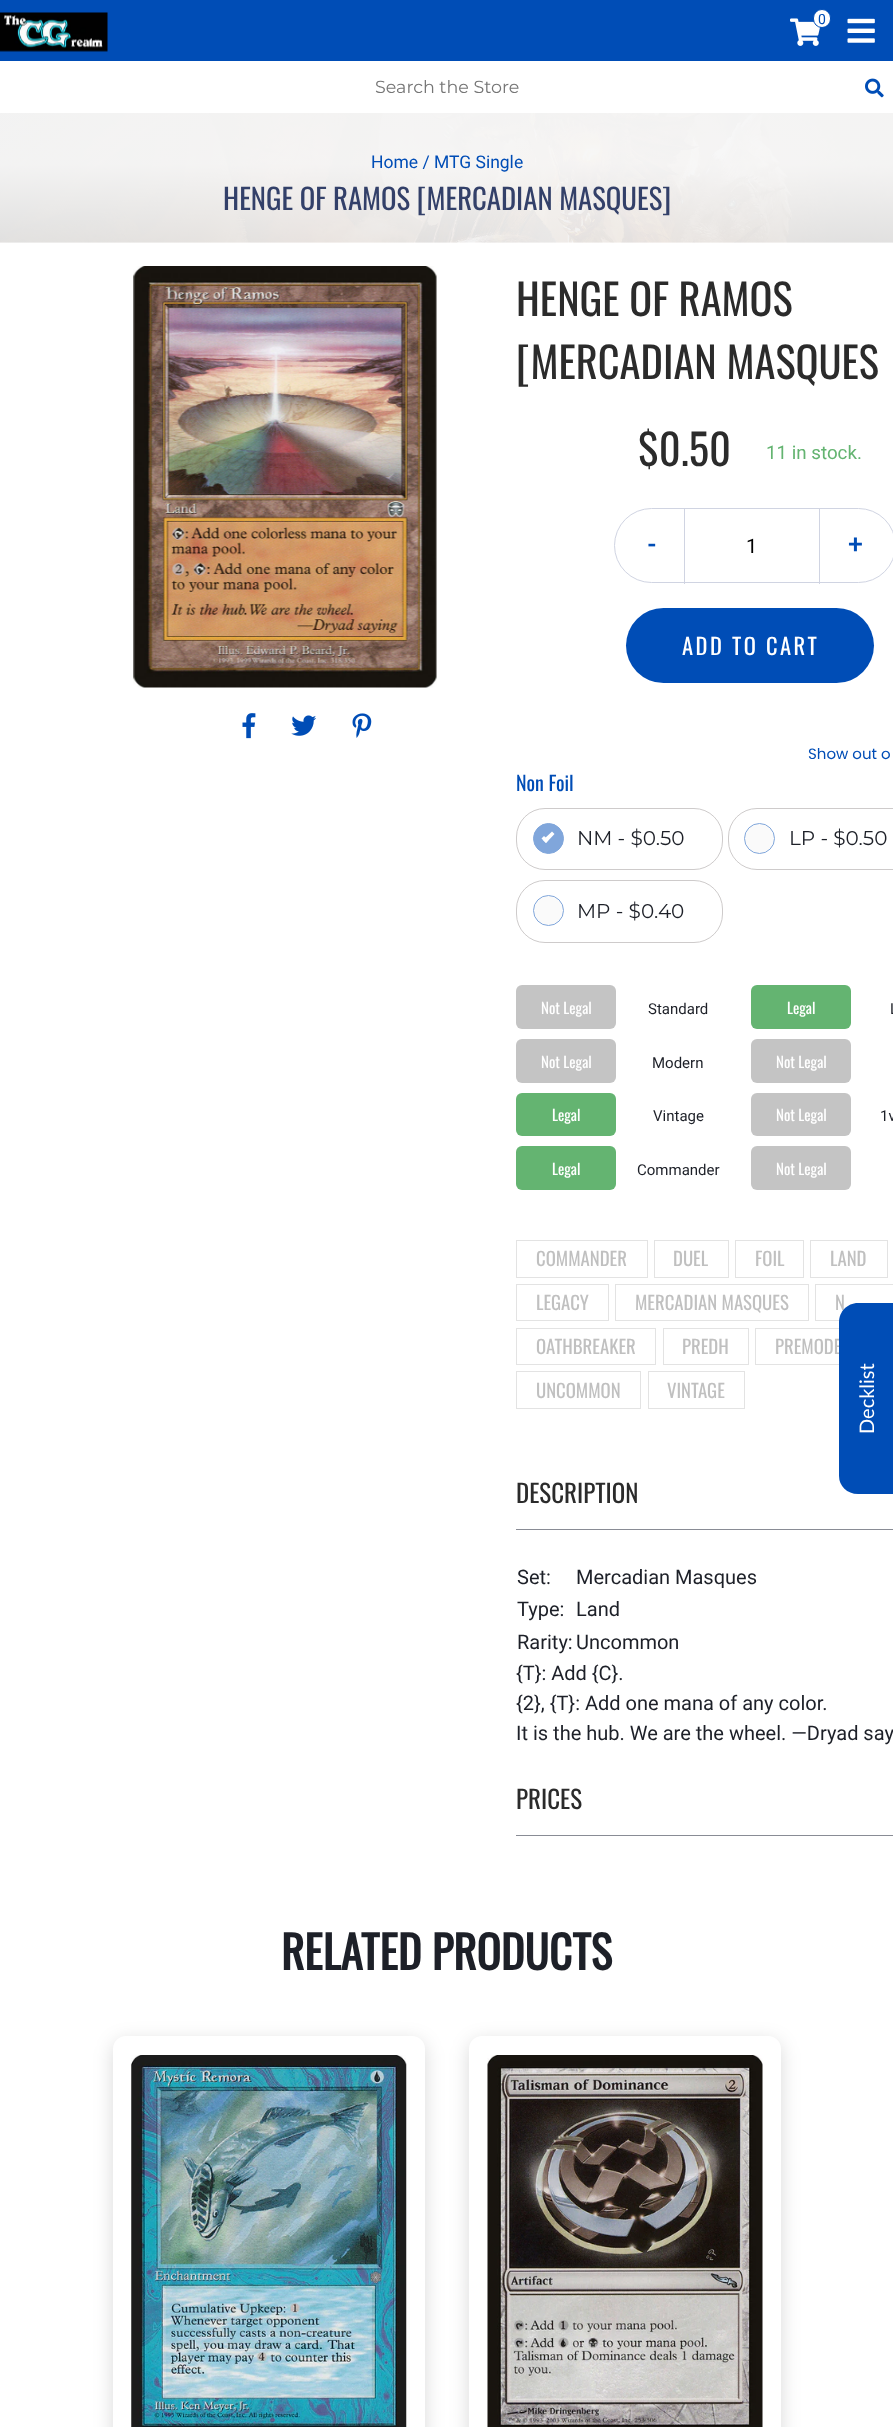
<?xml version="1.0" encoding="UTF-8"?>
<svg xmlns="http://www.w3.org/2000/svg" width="893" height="2427">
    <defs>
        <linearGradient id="g1" gradientUnits="userSpaceOnUse" x1="447" y1="0" x2="447" y2="514"><stop offset="0.32" stop-color="#FFFFFF" stop-opacity="0.95"/><stop offset="1" stop-color="#FFFFFF" stop-opacity="0.6"/></linearGradient>
        <filter id="blur1" x="-50%" y="-200%" width="200%" height="500%"><feGaussianBlur stdDeviation="9.5"/></filter>
    </defs>
    <rect width="100%" height="100%" fill="#FFFFFF"/>
    <rect x="0" y="0" width="893" height="61" fill="#004DB6"/>
    <image x="0" y="12" width="108" height="40" href="img_01.png"/>
    <image x="847" y="18" width="28" height="25" href="img_02.png"/>
    <image x="790" y="18" width="30" height="28" href="img_03.png"/>
    <rect x="813.5" y="9.5" width="17" height="18" rx="8.5" fill="#FFFFFF" stroke="#004DB6"/>
    <text x="818" y="24" font-family="Roboto" font-size="14" fill="#004DB6">0</text>
    <text x="375" y="93" font-family="Montserrat" font-size="17.5" fill="#757575">Search the Store</text>
    <image x="865" y="78" width="19" height="20" href="img_04.png"/>
    <image x="0" y="113" width="893" height="130" href="img_05.png"/>
    <rect x="0" y="113" width="893" height="130" fill="url(#g1)"/>
    <text x="371" y="168" font-family="Roboto" font-size="17.5" fill="#004DB6">Home / MTG Single</text>
    <text x="223" y="210" font-family="Oswald" font-size="28.75" fill="#334069">HENGE OF RAMOS [MERCADIAN MASQUES]</text>
    <image x="133" y="266" width="304" height="422" href="img_06.png"/>
    <image x="242" y="713" width="14" height="26" href="img_07.png"/>
    <image x="291" y="715" width="25" height="21" href="img_08.png"/>
    <image x="352" y="713" width="20" height="25" href="img_09.png"/>
    <text font-family="Oswald" font-size="42.5" fill="#2B2B2B">
        <tspan x="516" y="316">HENGE OF RAMOS</tspan>
        <tspan x="516" y="379">[MERCADIAN MASQUES</tspan>
    </text>
    <text x="638" y="466" font-family="Oswald" font-size="42.5" fill="#2B2B2B">$0.50</text>
    <text x="766" y="459" font-family="Roboto" font-size="18.75" fill="#64B471">11 in stock.</text>
    <rect x="614.5" y="508.5" width="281" height="74" rx="37" fill="none" stroke="#D0D4E2"/>
    <text x="648" y="553" font-family="Roboto" font-size="25" font-weight="700" fill="#004DB6">-</text>
    <rect x="819" y="509" width="1" height="75" fill="#D0D4E2"/>
    <rect x="684" y="509" width="1" height="75" fill="#D0D4E2"/>
    <text x="746" y="553" font-family="Roboto" font-size="20" fill="#000000">1</text>
    <text x="848" y="553" font-family="Roboto" font-size="25" font-weight="700" fill="#004DB6">+</text>
    <rect x="626" y="608" width="248" height="75" rx="37.5" fill="#004DB6"/>
    <text x="682" y="655" font-family="Oswald" font-size="22.5" letter-spacing="2.5" fill="#FFFFFF">ADD TO CART</text>
    <text x="808" y="759" font-family="Poppins" font-size="15" fill="#004DB6">Show out o</text>
    <text x="516" y="791" font-family="Oswald" font-size="20" fill="#004DB6">Non Foil</text>
    <rect x="516.5" y="808.5" width="206" height="61" rx="28.5" fill="none" stroke="#CECBCB"/>
    <circle cx="548.5" cy="838.5" r="15" fill="#80A6DB" stroke="#80A6DB"/>
    <path d="M 552 831.5 L 554.5 834 L 546 843 L 543 840 Z" fill="#FFFFFF"/>
    <path d="M 544 836 L 548.5 840 L 546 843 L 541.5 838.5 Z" fill="#FFFFFF"/>
    <text x="577" y="845" font-family="Montserrat" font-size="20" fill="#1D2028">NM - $0.50</text>
    <rect x="728.5" y="808.5" width="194" height="61" rx="28.5" fill="none" stroke="#CECBCB"/>
    <circle cx="759.5" cy="838.5" r="15" fill="#FAFAFA" stroke="#80A6DB"/>
    <text x="789" y="845" font-family="Montserrat" font-size="20" fill="#1D2028">LP - $0.50</text>
    <rect x="516.5" y="880.5" width="206" height="62" rx="28.5" fill="none" stroke="#CECBCB"/>
    <circle cx="548.5" cy="910.5" r="15" fill="#FAFAFA" stroke="#80A6DB"/>
    <text x="577" y="918" font-family="Montserrat" font-size="20" fill="#1D2028">MP - $0.40</text>
    <rect x="516" y="985" width="100" height="44" rx="6" fill="#C4C4C4"/>
    <text x="541" y="1014" font-family="Oswald" font-size="15" fill="#FFFFFF">Not Legal</text>
    <text x="648" y="1014" font-family="Roboto" font-size="15" fill="#1D2028">Standard</text>
    <rect x="751" y="985" width="100" height="44" rx="6" fill="#64B471"/>
    <text x="787" y="1014" font-family="Oswald" font-size="15" fill="#FFFFFF">Legal</text>
    <text x="890" y="1014" font-family="Roboto" font-size="15" fill="#1D2028">L</text>
    <rect x="516" y="1039" width="100" height="44" rx="6" fill="#C4C4C4"/>
    <text x="541" y="1068" font-family="Oswald" font-size="15" fill="#FFFFFF">Not Legal</text>
    <text x="652" y="1068" font-family="Roboto" font-size="15" fill="#1D2028">Modern</text>
    <rect x="751" y="1039" width="100" height="44" rx="6" fill="#C4C4C4"/>
    <text x="776" y="1068" font-family="Oswald" font-size="15" fill="#FFFFFF">Not Legal</text>
    <rect x="516" y="1093" width="100" height="43" rx="6" fill="#64B471"/>
    <text x="552" y="1121" font-family="Oswald" font-size="15" fill="#FFFFFF">Legal</text>
    <text x="653" y="1121" font-family="Roboto" font-size="15" fill="#1D2028">Vintage</text>
    <rect x="751" y="1093" width="100" height="43" rx="6" fill="#C4C4C4"/>
    <text x="776" y="1121" font-family="Oswald" font-size="15" fill="#FFFFFF">Not Legal</text>
    <text x="880" y="1121" font-family="Roboto" font-size="15" fill="#1D2028">1v</text>
    <rect x="516" y="1146" width="100" height="44" rx="6" fill="#64B471"/>
    <text x="552" y="1175" font-family="Oswald" font-size="15" fill="#FFFFFF">Legal</text>
    <text x="637" y="1175" font-family="Roboto" font-size="15" fill="#1D2028">Commander</text>
    <rect x="751" y="1146" width="100" height="44" rx="6" fill="#C4C4C4"/>
    <text x="776" y="1175" font-family="Oswald" font-size="15" fill="#FFFFFF">Not Legal</text>
    <rect x="516.5" y="1240.5" width="131" height="37" fill="none" stroke="#E3E3E3"/>
    <text x="536" y="1266" font-family="Oswald" font-size="18.75" fill="#C0C0C0">COMMANDER</text>
    <rect x="654.5" y="1240.5" width="74" height="37" fill="none" stroke="#E3E3E3"/>
    <text x="673" y="1266" font-family="Oswald" font-size="18.75" fill="#C0C0C0">DUEL</text>
    <rect x="735.5" y="1240.5" width="68" height="37" fill="none" stroke="#E3E3E3"/>
    <text x="755" y="1266" font-family="Oswald" font-size="18.75" fill="#C0C0C0">FOIL</text>
    <rect x="810.5" y="1240.5" width="77" height="37" fill="none" stroke="#E3E3E3"/>
    <text x="830" y="1266" font-family="Oswald" font-size="18.75" fill="#C0C0C0">LAND</text>
    <rect x="516.5" y="1284.5" width="92" height="36" fill="none" stroke="#E3E3E3"/>
    <text x="536" y="1310" font-family="Oswald" font-size="18.75" fill="#C0C0C0">LEGACY</text>
    <rect x="615.5" y="1284.5" width="193" height="36" fill="none" stroke="#E3E3E3"/>
    <text x="635" y="1310" font-family="Oswald" font-size="18.75" fill="#C0C0C0">MERCADIAN MASQUES</text>
    <rect x="815.5" y="1284.5" width="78" height="36" fill="none" stroke="#E3E3E3"/>
    <text x="835" y="1310" font-family="Oswald" font-size="18.75" fill="#C0C0C0">N</text>
    <rect x="516.5" y="1328.5" width="139" height="36" fill="none" stroke="#E3E3E3"/>
    <text x="536" y="1354" font-family="Oswald" font-size="18.75" fill="#C0C0C0">OATHBREAKER</text>
    <rect x="663.5" y="1328.5" width="85" height="36" fill="none" stroke="#E3E3E3"/>
    <text x="682" y="1354" font-family="Oswald" font-size="18.75" fill="#C0C0C0">PREDH</text>
    <rect x="755.5" y="1328.5" width="125" height="36" fill="none" stroke="#E3E3E3"/>
    <text x="775" y="1354" font-family="Oswald" font-size="18.75" fill="#C0C0C0">PREMODE</text>
    <rect x="516.5" y="1371.5" width="124" height="37" fill="none" stroke="#E3E3E3"/>
    <text x="536" y="1398" font-family="Oswald" font-size="18.75" fill="#C0C0C0">UNCOMMON</text>
    <rect x="648.5" y="1371.5" width="96" height="37" fill="none" stroke="#E3E3E3"/>
    <text x="667" y="1398" font-family="Oswald" font-size="18.75" fill="#C0C0C0">VINTAGE</text>
    <rect x="516" y="1529" width="377" height="1" fill="#898C95"/>
    <text x="516" y="1503" font-family="Oswald" font-size="25" fill="#2B2B2B">DESCRIPTION</text>
    <text x="517" y="1584" font-family="Roboto" font-size="20" fill="#1D2028">Set:</text>
    <text x="576" y="1584" font-family="Roboto" font-size="20" fill="#1D2028">Mercadian Masques</text>
    <text x="517" y="1616" font-family="Roboto" font-size="20" fill="#1D2028">Type:</text>
    <text x="576" y="1616" font-family="Roboto" font-size="20" fill="#1D2028">Land</text>
    <text x="517" y="1649" font-family="Roboto" font-size="20" fill="#1D2028">Rarity:</text>
    <text x="576" y="1649" font-family="Roboto" font-size="20" fill="#1D2028">Uncommon</text>
    <text font-family="Roboto" font-size="20" fill="#1D2028">
        <tspan x="516" y="1680">{T}: Add {C}.</tspan>
        <tspan x="516" y="1710">{2}, {T}: Add one mana of any color.</tspan>
        <tspan x="516" y="1740">It is the hub. We are the wheel. —Dryad say</tspan>
    </text>
    <rect x="516" y="1835" width="377" height="1" fill="#898C95"/>
    <text x="516" y="1809" font-family="Oswald" font-size="25" fill="#2B2B2B">PRICES</text>
    <text x="281" y="1970" font-family="Oswald" font-size="45" font-weight="700" fill="#1D2028">RELATED PRODUCTS</text>
    <rect x="113" y="2041" width="312" height="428" rx="13" fill="#000000" fill-opacity="0.15" filter="url(#blur1)"/>
    <rect x="113" y="2036" width="312" height="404" rx="13" fill="#FFFFFF"/>
    <image x="131" y="2055" width="276" height="372" href="img_10.png"/>
    <rect x="469" y="2041" width="312" height="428" rx="13" fill="#000000" fill-opacity="0.15" filter="url(#blur1)"/>
    <rect x="469" y="2036" width="312" height="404" rx="13" fill="#FFFFFF"/>
    <image x="487" y="2055" width="276" height="372" href="img_11.png"/>
    <path d="M 839 1476 V 1322 C 839 1312 847 1303 858 1303 H 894 V 1494 H 858 C 847 1494 839 1486 839 1476 Z" fill="#004DB6"/>
    <text x="874" y="1434" transform="rotate(-90 874 1434)" font-family="Lato" font-size="20" fill="#FFFFFF">Decklist</text>
</svg>
